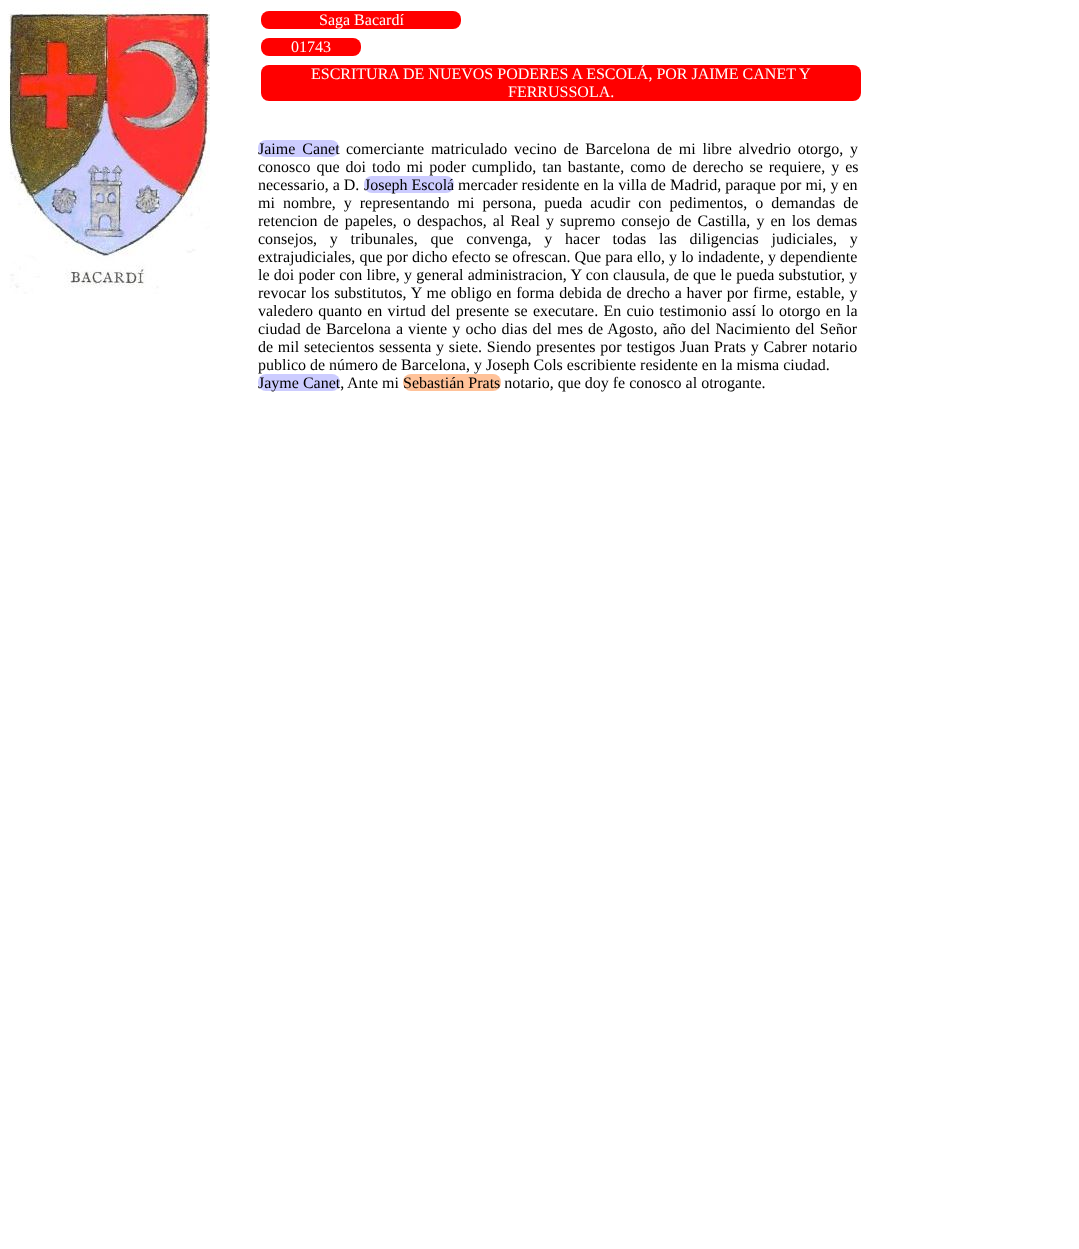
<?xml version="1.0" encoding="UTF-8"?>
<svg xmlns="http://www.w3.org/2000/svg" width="1079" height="1249">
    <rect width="100%" height="100%" fill="#FFFFFF"/>
    <image x="8" y="0" width="202" height="294" href="img_01.png"/>
    <rect x="261" y="11" width="200" height="18" rx="8" fill="#FF0000"/>
    <text x="319" y="25" font-family="Liberation Serif" font-size="16" fill="#FFFFFF">Saga Bacardí</text>
    <rect x="261" y="38" width="100" height="18" rx="8" fill="#FF0000"/>
    <text x="291" y="52" font-family="Liberation Serif" font-size="16" fill="#FFFFFF">01743</text>
    <rect x="261" y="65" width="600" height="36" rx="8" fill="#FF0000"/>
    <text x="311" y="79" font-family="Liberation Serif" font-size="16" fill="#FFFFFF">ESCRITURA DE NUEVOS PODERES A ESCOLÁ, POR JAIME CANET Y</text>
    <text x="508" y="97" font-family="Liberation Serif" font-size="16" fill="#FFFFFF">FERRUSSOLA.</text>
    <rect x="258" y="140" width="81" height="17" rx="8" fill="#CCCCFF"/>
    <text x="258" y="154" word-spacing="3" font-family="Liberation Serif" font-size="16" fill="#000000">Jaime Canet</text>
    <text x="346" y="154" word-spacing="2.75" font-family="Liberation Serif" font-size="16" fill="#000000">comerciante matriculado vecino de Barcelona de mi libre alvedrio otorgo, y</text>
    <text font-family="Liberation Serif" font-size="16" fill="#000000">
        <tspan x="258" y="172" word-spacing="2">conosco que doi todo mi poder cumplido, tan bastante, como de derecho se requiere, y es</tspan>
        <tspan x="258" y="190">necessario, a D.</tspan>
    </text>
    <rect x="364" y="176" width="90" height="17" rx="8" fill="#CCCCFF"/>
    <text x="364" y="190" font-family="Liberation Serif" font-size="16" fill="#000000">Joseph Escolá</text>
    <text x="458" y="190" word-spacing="0.1" font-family="Liberation Serif" font-size="16" fill="#000000">mercader residente en la villa de Madrid, paraque por mi, y en</text>
    <text font-family="Liberation Serif" font-size="16" fill="#000000">
        <tspan x="258" y="208" word-spacing="4">mi nombre, y representando mi persona, pueda acudir con pedimentos, o demandas de</tspan>
        <tspan x="258" y="226" word-spacing="2.1">retencion de papeles, o despachos, al Real y supremo consejo de Castilla, y en los demas</tspan>
        <tspan x="258" y="244" word-spacing="8.75">consejos, y tribunales, que convenga, y hacer todas las diligencias judiciales, y</tspan>
        <tspan x="258" y="262" word-spacing="0.1">extrajudiciales, que por dicho efecto se ofrescan. Que para ello, y lo indadente, y dependiente</tspan>
        <tspan x="258" y="280" word-spacing="0.25">le doi poder con libre, y general administracion, Y con clausula, de que le pueda substutior, y</tspan>
        <tspan x="258" y="298" word-spacing="0.75">revocar los substitutos, Y me obligo en forma debida de drecho a haver por firme, estable, y</tspan>
        <tspan x="258" y="316" word-spacing="1.25">valedero quanto en virtud del presente se executare. En cuio testimonio assí lo otorgo en la</tspan>
        <tspan x="258" y="334" word-spacing="1.1">ciudad de Barcelona a viente y ocho dias del mes de Agosto, año del Nacimiento del Señor</tspan>
        <tspan x="258" y="352" word-spacing="0.75">de mil setecientos sessenta</tspan>
    </text>
    <text x="436" y="352" word-spacing="0.75" font-family="Liberation Serif" font-size="16" fill="#000000">y siete. Siendo presentes por testigos Juan Prats y Cabrer notario</text>
    <text x="258" y="370" font-family="Liberation Serif" font-size="16" fill="#000000">publico de número de Barcelona, y Joseph Cols escribiente residente en la misma ciudad.</text>
    <rect x="258" y="374" width="82" height="17" rx="8" fill="#CCCCFF"/>
    <text x="258" y="388" font-family="Liberation Serif" font-size="16" fill="#000000">Jayme Canet,</text>
    <text x="347" y="388" font-family="Liberation Serif" font-size="16" fill="#000000">Ante mi</text>
    <rect x="403" y="374" width="98" height="17" rx="8" fill="#FFC299"/>
    <text x="403" y="388" font-family="Liberation Serif" font-size="16" fill="#000000">Sebastián Prats notario, que doy fe conosco al otrogante.</text>
</svg>
